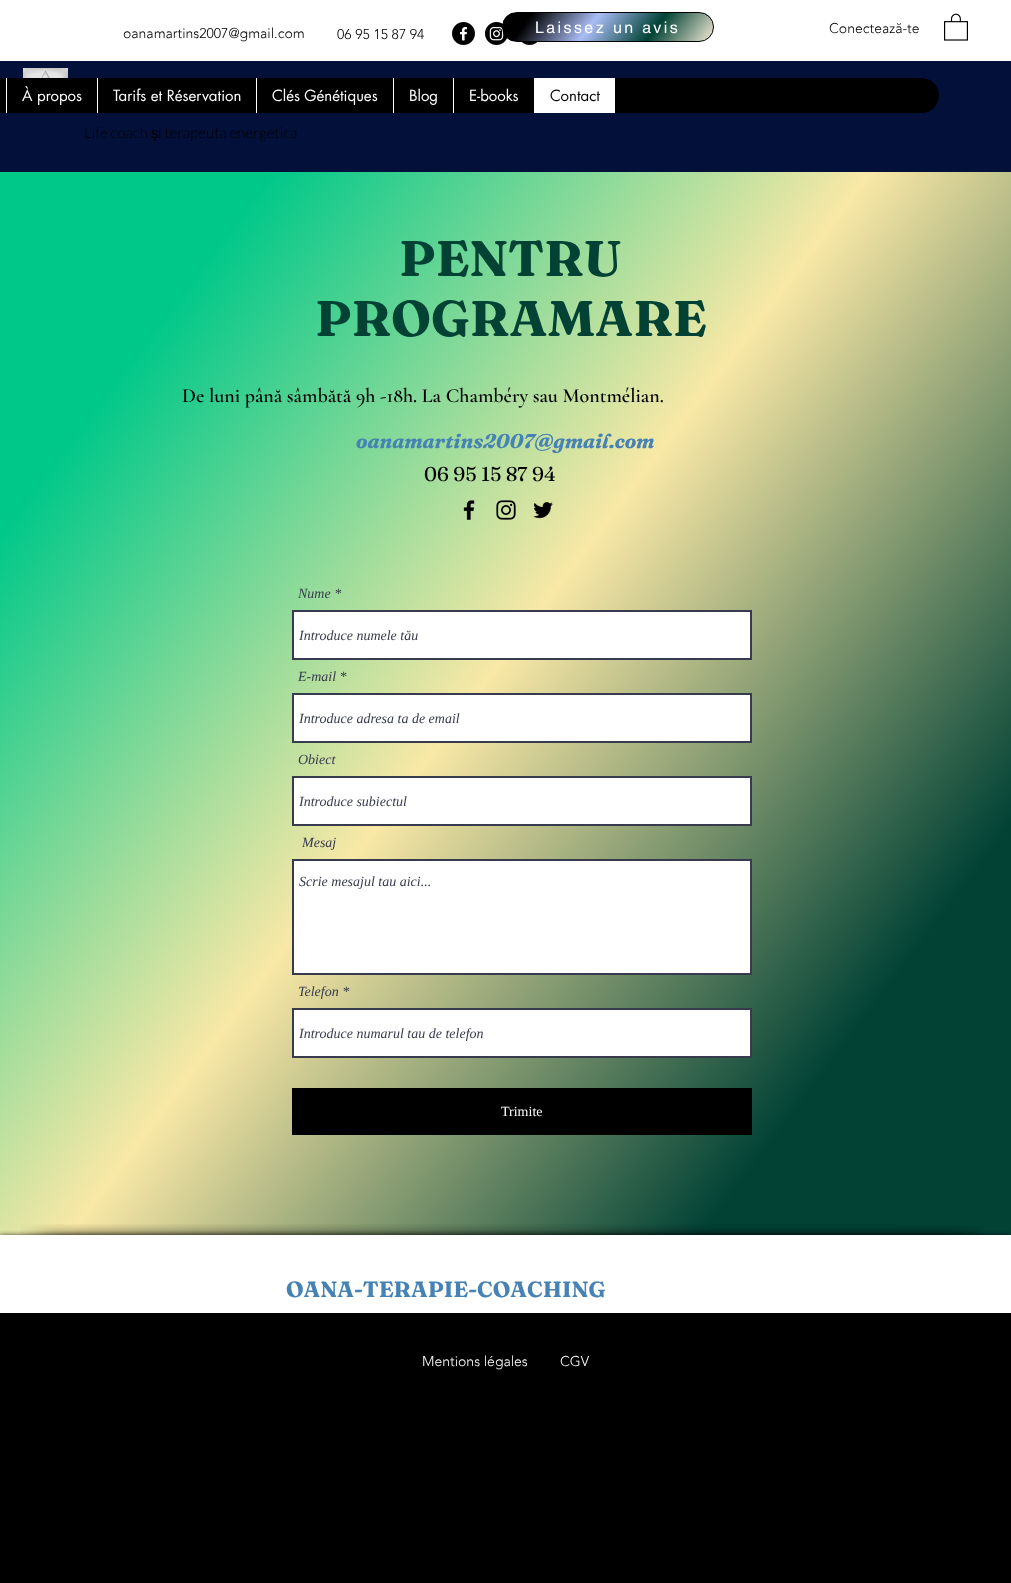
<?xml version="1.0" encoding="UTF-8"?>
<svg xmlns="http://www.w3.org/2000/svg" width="1011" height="1583">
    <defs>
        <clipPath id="clip1"><rect x="502" y="12" width="212" height="30" rx="15"/></clipPath>
        <linearGradient id="g1" gradientUnits="userSpaceOnUse" x1="533" y1="-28" x2="683" y2="82"><stop offset="0.13" stop-color="#000000"/><stop offset="0.42" stop-color="#AABDF6"/><stop offset="0.71" stop-color="#014235"/><stop offset="1" stop-color="#F4EBD7"/></linearGradient>
        <linearGradient id="g2" gradientUnits="userSpaceOnUse" x1="-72" y1="268" x2="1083" y2="1139"><stop offset="0.15" stop-color="#00C889"/><stop offset="0.48" stop-color="#F9E8A6"/><stop offset="0.83" stop-color="#014235"/></linearGradient>
        <filter id="blur1" x="-50%" y="-200%" width="200%" height="500%"><feGaussianBlur stdDeviation="2.5"/></filter>
    </defs>
    <rect width="100%" height="100%" fill="#000000"/>
    <rect x="0" y="0" width="1011" height="61" fill="#FFFFFF"/>
    <text x="123" y="38" font-family="'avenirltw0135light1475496'" font-size="14" font-weight="300" fill="#000000">oanamartins2007@gmail.com</text>
    <text x="337" y="39" font-family="'avenirltw0135light1475496'" font-size="14" font-weight="300" fill="#000000">06 95 15 87 94</text>
    <image x="452" y="22" width="23" height="23" href="img_01.png"/>
    <image x="485" y="22" width="22" height="23" href="img_02.png"/>
    <image x="522" y="42" width="15" height="3" href="img_03.png"/>
    <g clip-path="url(#clip1)">
        <rect x="503" y="13" width="210" height="28" fill="url(#g1)"/>
    </g>
    <rect x="502.5" y="12.5" width="211" height="29" rx="14.5" fill="none" stroke="#000000"/>
    <text x="535" y="33" font-family="helvetica" font-size="16" letter-spacing="2.4" fill="#FFFFFF">Laissez un avis</text>
    <text x="829" y="33" font-family="'avenirltw0135light1475496'" font-size="14" font-weight="300" fill="#000000">Conectează-te</text>
    <image x="944" y="13" width="24" height="28" href="img_04.png"/>
    <rect x="0" y="61" width="1011" height="111" fill="#03103A"/>
    <rect x="-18" y="78" width="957" height="35" rx="17.5" fill="#000000"/>
    <rect x="6" y="78" width="1" height="35" fill="#FFFFFF"/>
    <text x="22" y="101" font-family="futura" font-size="15" fill="#FFFFFF">À propos</text>
    <rect x="97" y="78" width="1" height="35" fill="#FFFFFF"/>
    <text x="113" y="101" font-family="futura" font-size="15" fill="#FFFFFF">Tarifs et Réservation</text>
    <rect x="256" y="78" width="1" height="35" fill="#FFFFFF"/>
    <text x="272" y="101" font-family="futura" font-size="15" fill="#FFFFFF">Clés Génétiques</text>
    <rect x="393" y="78" width="1" height="35" fill="#FFFFFF"/>
    <text x="409" y="101" font-family="futura" font-size="15" fill="#FFFFFF">Blog</text>
    <rect x="453" y="78" width="1" height="35" fill="#FFFFFF"/>
    <text x="469" y="101" font-family="futura" font-size="15" fill="#FFFFFF">E-books</text>
    <rect x="534" y="78" width="81" height="35" fill="#FFFFFF"/>
    <text x="550" y="101" font-family="futura" font-size="15" fill="#000000">Contact</text>
    <image x="23" y="68" width="45" height="10" href="img_05.png"/>
    <text x="84" y="138" font-family="Lato" font-size="15" font-weight="300" fill="#000000">Life coach</text>
    <text x="151" y="138" font-family="Liberation Sans" font-size="15" fill="#000000">ș</text>
    <text x="158" y="138" font-family="Lato" font-size="15" font-weight="300" fill="#000000">i terapeuta energetica</text>
    <rect x="0" y="172" width="1011" height="1063" fill="url(#g2)"/>
    <text x="399" y="276" font-family="Fraunces" font-size="50" font-weight="700" fill="#014235">PENTRU</text>
    <text x="315" y="336" font-family="Fraunces" font-size="50" font-weight="700" fill="#014235">PROGRAMARE</text>
    <text x="182" y="402" font-family="Cormorant Garamond" font-size="20" font-weight="600" fill="#000000">De luni până sâmbătă 9h -18h. La Chambéry sau Montmélian.</text>
    <text x="356" y="448" font-family="Fraunces" font-size="20" font-weight="700" font-style="italic" fill="#4682B4">oanamartins2007@gmail.com</text>
    <text x="424" y="481" font-family="Fraunces" font-size="20" fill="#000000">06 95 15 87 94</text>
    <image x="463" y="500" width="12" height="20" href="img_06.png"/>
    <image x="496" y="500" width="20" height="20" href="img_07.png"/>
    <image x="533" y="502" width="20" height="17" href="img_08.png"/>
    <text x="298" y="598" font-family="Liberation Serif" font-size="14" font-style="italic" fill="#373B4D">Nume *</text>
    <rect x="293" y="611" width="458" height="48" fill="#FFFFFF" stroke="#373B4D" stroke-width="2"/>
    <text x="299" y="640" font-family="Liberation Serif" font-size="14" font-style="italic" fill="#373B4D">Introduce numele tău</text>
    <text x="298" y="681" font-family="Liberation Serif" font-size="14" font-style="italic" fill="#373B4D">E-mail *</text>
    <rect x="293" y="694" width="458" height="48" fill="#FFFFFF" stroke="#373B4D" stroke-width="2"/>
    <text x="299" y="723" font-family="Liberation Serif" font-size="14" font-style="italic" fill="#373B4D">Introduce adresa ta de email</text>
    <text x="298" y="764" font-family="Liberation Serif" font-size="14" font-style="italic" fill="#373B4D">Obiect</text>
    <rect x="293" y="777" width="458" height="48" fill="#FFFFFF" stroke="#373B4D" stroke-width="2"/>
    <text x="299" y="806" font-family="Liberation Serif" font-size="14" font-style="italic" fill="#373B4D">Introduce subiectul</text>
    <text x="302" y="847" font-family="Liberation Serif" font-size="14" font-style="italic" fill="#373B4D">Mesaj</text>
    <rect x="293" y="860" width="458" height="114" fill="#FFFFFF" stroke="#373B4D" stroke-width="2"/>
    <text x="299" y="886" font-family="Liberation Serif" font-size="14" font-style="italic" fill="#373B4D">Scrie mesajul tau aici...</text>
    <text x="298" y="996" font-family="Liberation Serif" font-size="14" font-style="italic" fill="#373B4D">Telefon *</text>
    <rect x="293" y="1009" width="458" height="48" fill="#FFFFFF" stroke="#373B4D" stroke-width="2"/>
    <text x="299" y="1038" font-family="Liberation Serif" font-size="14" font-style="italic" fill="#373B4D">Introduce numarul tau de telefon</text>
    <rect x="292" y="1088" width="460" height="47" fill="#000000"/>
    <text x="501" y="1116" font-family="Liberation Serif" font-size="14" fill="#FFFFFF">Trimite</text>
    <rect x="0" y="1235" width="1011" height="145" fill="#000000" fill-opacity="0.7" filter="url(#blur1)"/>
    <rect x="0" y="1235" width="1011" height="78" fill="#FFFFFF"/>
    <image x="20" y="1224" width="96" height="11" href="img_09.png"/>
    <image x="116" y="1224" width="780" height="11" href="img_10.png"/>
    <image x="896" y="1226" width="87" height="9" href="img_11.png"/>
    <text x="286" y="1297" font-family="Fraunces" font-size="22" font-weight="700" fill="#4682B4">OANA-TERAPIE-COACHING</text>
    <text x="422" y="1366" font-family="'avenirltw0135light1475496'" font-size="14" font-weight="300" fill="#FFFFFF">Mentions légales</text>
    <text x="560" y="1366" font-family="'avenirltw0135light1475496'" font-size="14" font-weight="300" fill="#FFFFFF">CGV</text>
</svg>
